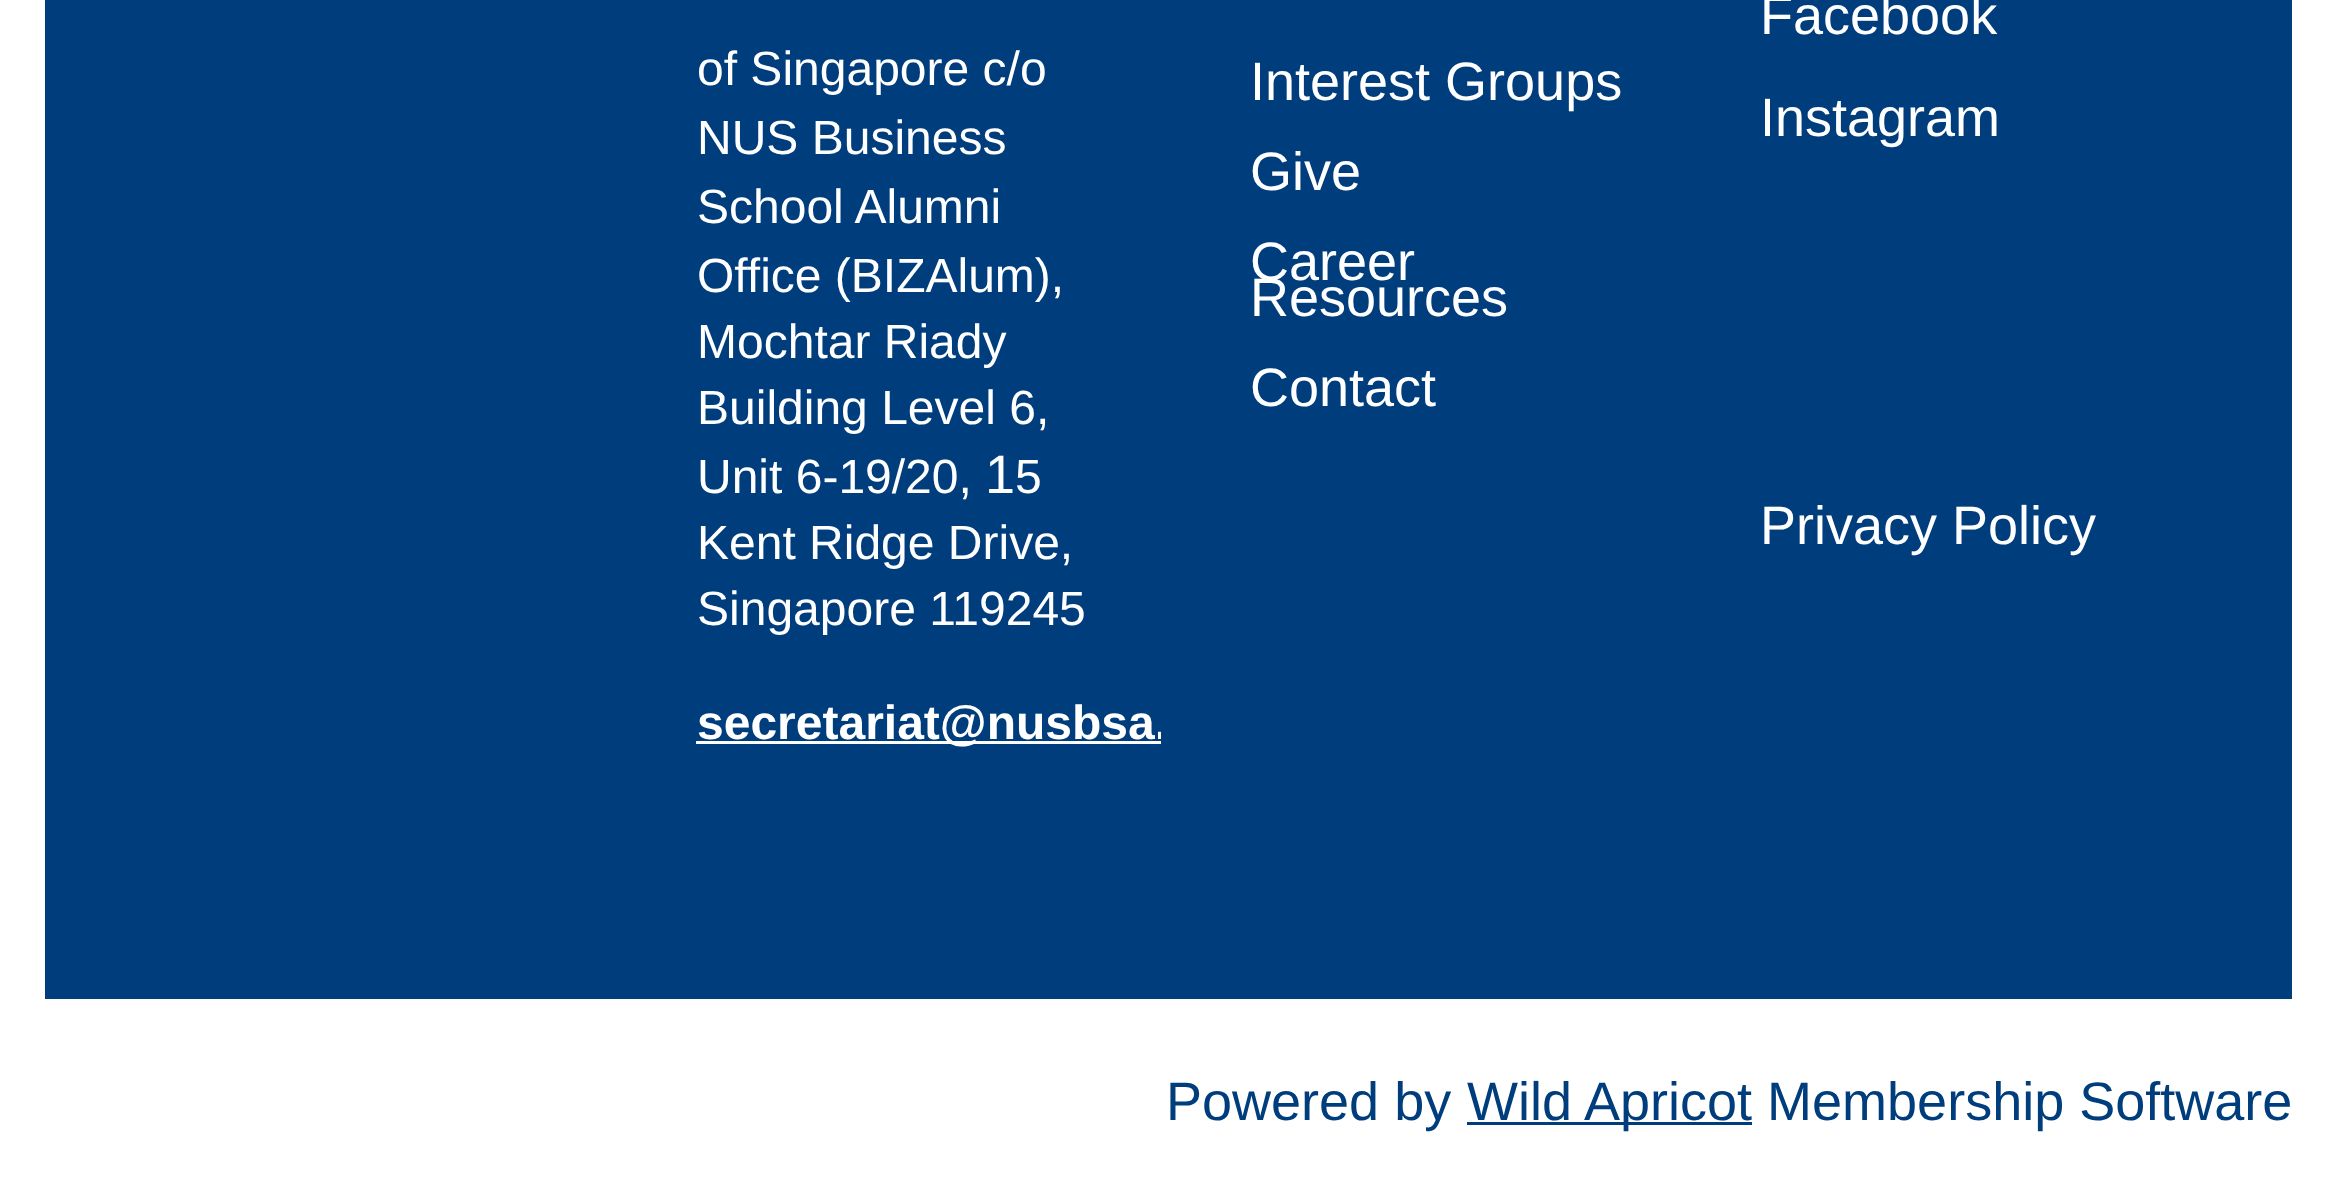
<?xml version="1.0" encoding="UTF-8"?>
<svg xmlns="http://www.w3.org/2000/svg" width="2336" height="1179">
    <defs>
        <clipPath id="clip1"><rect x="666" y="0" width="495" height="789"/></clipPath>
    </defs>
    <rect width="100%" height="100%" fill="#FFFFFF"/>
    <rect x="45" y="0" width="2247" height="999" fill="#003D7C"/>
    <text font-family="Liberation Sans" font-size="48" fill="#FFFFFF">
        <tspan x="697" y="85">of Singapore c/o</tspan>
        <tspan x="697" y="154">NUS Business</tspan>
        <tspan x="697" y="223">School Alumni</tspan>
        <tspan x="697" y="292">Office (BIZAlum),</tspan>
        <tspan x="697" y="358">Mochtar Riady</tspan>
        <tspan x="697" y="424">Building Level 6,</tspan>
        <tspan x="697" y="493">Unit 6-19/20,</tspan>
    </text>
    <text x="985" y="493" font-family="Liberation Sans" font-size="54" fill="#FFFFFF">1</text>
    <text x="1015" y="493" font-family="Liberation Sans" font-size="48" fill="#FFFFFF">5</text>
    <text font-family="Liberation Sans" font-size="48" fill="#FFFFFF">
        <tspan x="697" y="559">Kent Ridge Drive,</tspan>
        <tspan x="697" y="625">Singapore 119245</tspan>
    </text>
    <rect x="696" y="741" width="465" height="3" fill="#FFFFFF"/>
    <g clip-path="url(#clip1)">
        <text x="697" y="739" font-family="Liberation Sans" font-size="48" font-weight="700" fill="#FFFFFF">secretariat@nusbsa.</text>
    </g>
    <text font-family="Liberation Sans" font-size="54" fill="#FFFFFF">
        <tspan x="1250" y="100">Interest Groups</tspan>
        <tspan x="1250" y="190">Give</tspan>
        <tspan x="1250" y="280">Career</tspan>
        <tspan x="1250" y="316">Resources</tspan>
        <tspan x="1250" y="406">Contact</tspan>
    </text>
    <text font-family="Liberation Sans" font-size="54" fill="#FFFFFF">
        <tspan x="1760" y="34">Facebook</tspan>
        <tspan x="1760" y="136">Instagram</tspan>
    </text>
    <text x="1760" y="544" font-family="Liberation Sans" font-size="54" fill="#FFFFFF">Privacy Policy</text>
    <text x="1166" y="1120" font-family="Liberation Sans" font-size="54" fill="#003D7C">Powered by</text>
    <rect x="1467" y="1122" width="285" height="3" fill="#003D7C"/>
    <text x="1467" y="1120" font-family="Liberation Sans" font-size="54" fill="#003D7C">Wild Apricot Membership Software</text>
</svg>
